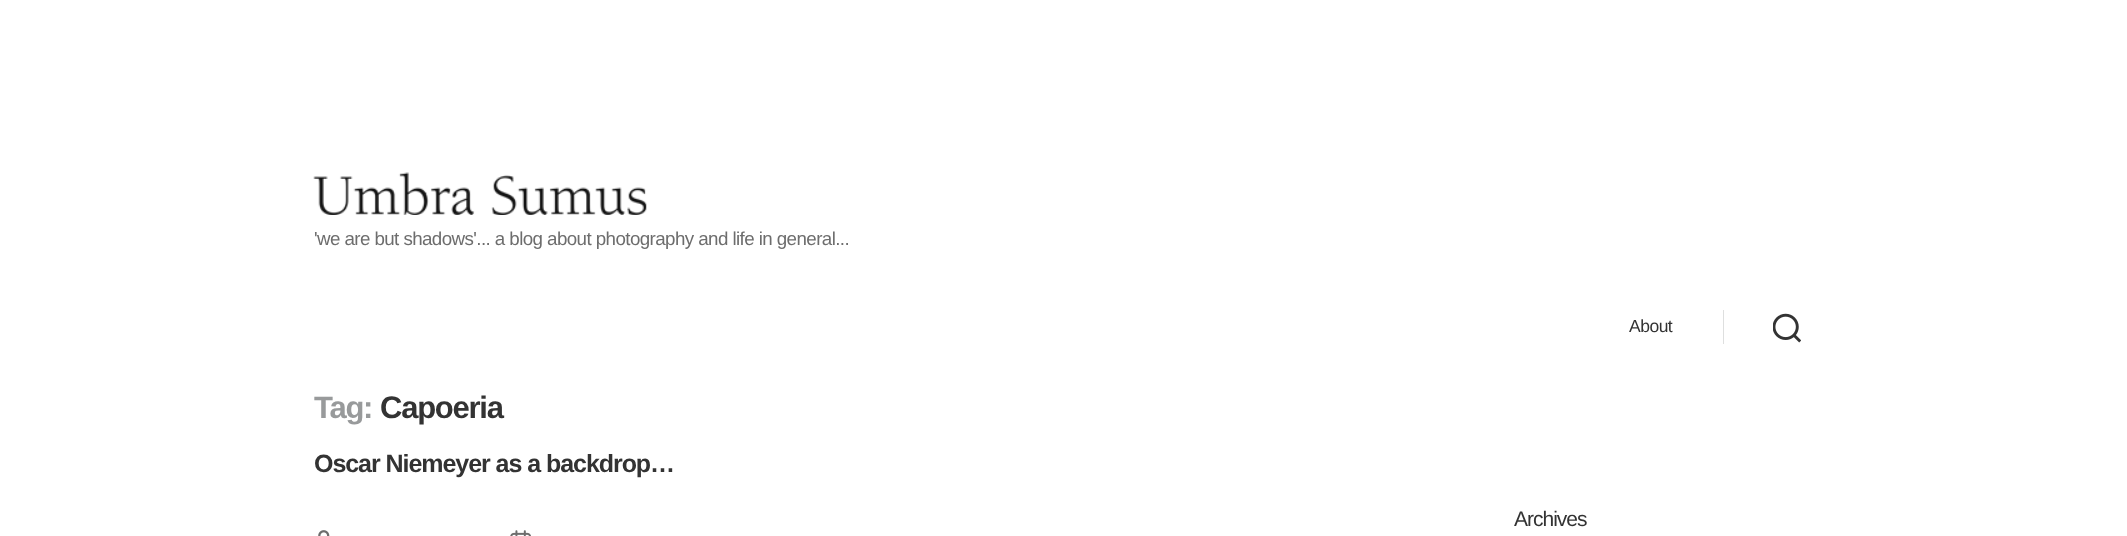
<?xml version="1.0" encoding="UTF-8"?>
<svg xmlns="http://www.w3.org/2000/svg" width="2127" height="536">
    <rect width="100%" height="100%" fill="#FFFFFF"/>
    <image x="313" y="172" width="334" height="43" href="img_01.png"/>
    <text x="314" y="245" font-family="Liberation Sans" font-size="18.75" letter-spacing="-0.58" fill="#6D6D6D">'we are but shadows'... a blog about photography and life in general...</text>
    <text x="1629" y="332" font-family="Liberation Sans" font-size="17.5" letter-spacing="-0.5" fill="#333333">About</text>
    <rect x="1723" y="310" width="1" height="34" fill="#DEDFDF"/>
    <image x="1773" y="313" width="28" height="30" href="img_02.png"/>
    <text x="314" y="418" font-family="Liberation Sans" font-size="31" font-weight="700" letter-spacing="-1.25" fill="#989A9B">Tag:</text>
    <text x="380" y="418" font-family="Liberation Sans" font-size="31" font-weight="700" letter-spacing="-1.25" fill="#333333">Capoeria</text>
    <text x="314" y="472" font-family="Liberation Sans" font-size="25" font-weight="700" letter-spacing="-1.05" fill="#333333">Oscar Niemeyer as a backdrop…</text>
    <image x="318" y="530" width="12" height="6" href="img_03.png"/>
    <image x="510" y="530" width="21" height="6" href="img_04.png"/>
    <text x="1514" y="526" font-family="Liberation Sans" font-size="21" letter-spacing="-1" fill="#333333">Archives</text>
</svg>
